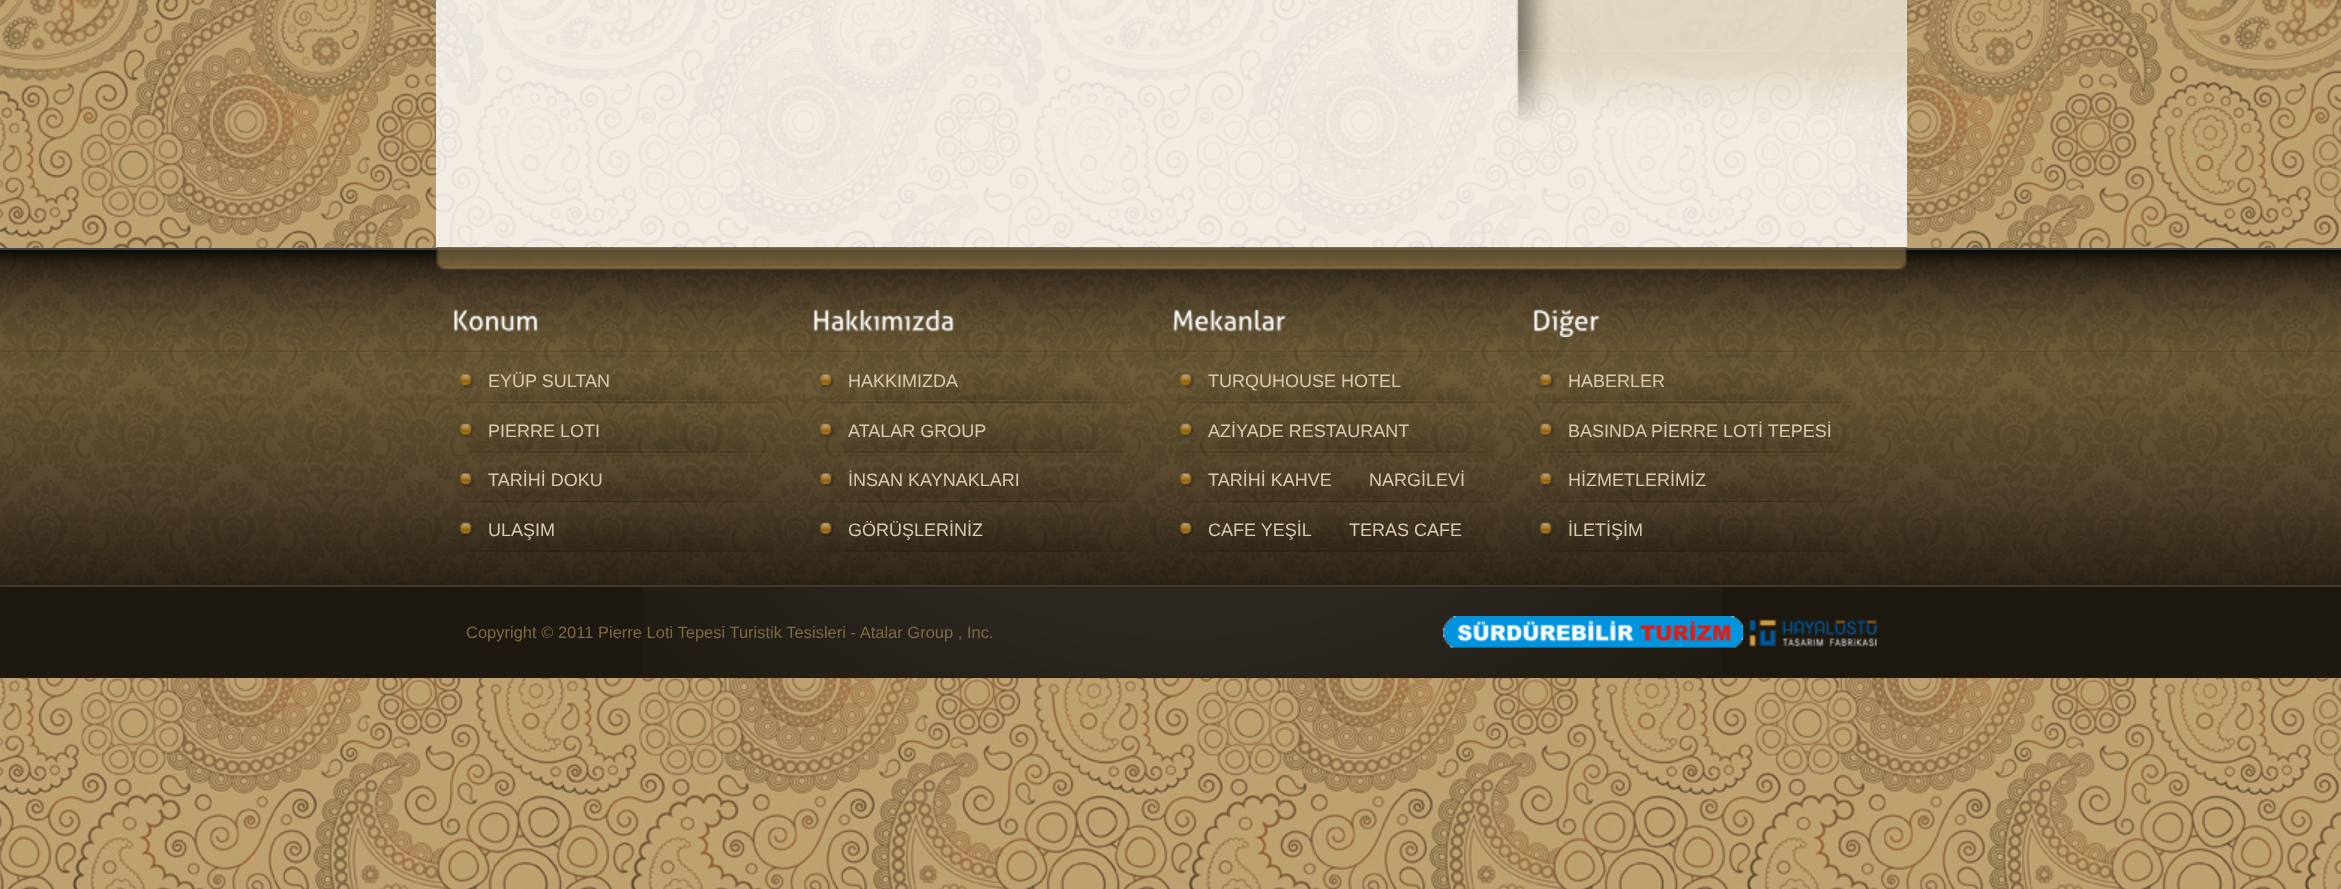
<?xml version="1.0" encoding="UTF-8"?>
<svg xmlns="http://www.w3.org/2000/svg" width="2341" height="889">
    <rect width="100%" height="100%" fill="#FFFFFF"/>
    <image x="0" y="0" width="2341" height="889" href="img_01.png"/>
    <rect x="436" y="0" width="1471" height="247" fill="#FFFFFF" fill-opacity="0.8"/>
    <image x="1516" y="0" width="391" height="51" href="img_02.png"/>
    <image x="1516" y="50" width="391" height="72" href="img_03.png"/>
    <image x="0" y="250" width="2341" height="335" href="img_04.png"/>
    <rect x="0" y="248" width="2341" height="2" fill="#454545"/>
    <image x="436" y="247" width="1471" height="23" href="img_05.png"/>
    <image x="453" y="309" width="85" height="23" href="img_06.png"/>
    <image x="457" y="356" width="320" height="48" href="img_07.png"/>
    <text x="488" y="387" font-family="Liberation Sans" font-size="18" fill="#D8CBAF">EYÜP SULTAN</text>
    <image x="457" y="406" width="319" height="47" href="img_08.png"/>
    <text x="488" y="437" font-family="Liberation Sans" font-size="18" fill="#D8CBAF">PIERRE LOTI</text>
    <image x="458" y="455" width="317" height="48" href="img_09.png"/>
    <text x="488" y="486" font-family="Liberation Sans" font-size="18" fill="#D8CBAF">TARİHİ DOKU</text>
    <image x="460" y="505" width="313" height="47" href="img_10.png"/>
    <text x="488" y="536" font-family="Liberation Sans" font-size="18" fill="#D8CBAF">ULAŞIM</text>
    <image x="813" y="309" width="142" height="23" href="img_11.png"/>
    <image x="816" y="356" width="320" height="48" href="img_12.png"/>
    <text x="848" y="387" font-family="Liberation Sans" font-size="18" fill="#D8CBAF">HAKKIMIZDA</text>
    <image x="817" y="406" width="319" height="47" href="img_13.png"/>
    <text x="848" y="437" font-family="Liberation Sans" font-size="18" fill="#D8CBAF">ATALAR GROUP</text>
    <image x="818" y="455" width="317" height="48" href="img_14.png"/>
    <text x="848" y="486" font-family="Liberation Sans" font-size="18" fill="#D8CBAF">İNSAN KAYNAKLARI</text>
    <image x="820" y="505" width="313" height="47" href="img_15.png"/>
    <text x="848" y="536" font-family="Liberation Sans" font-size="18" fill="#D8CBAF">GÖRÜŞLERİNİZ</text>
    <image x="1172" y="309" width="114" height="23" href="img_16.png"/>
    <image x="1177" y="356" width="319" height="48" href="img_17.png"/>
    <text x="1208" y="387" font-family="Liberation Sans" font-size="18" fill="#D8CBAF">TURQUHOUSE HOTEL</text>
    <image x="1178" y="406" width="317" height="47" href="img_18.png"/>
    <text x="1208" y="437" font-family="Liberation Sans" font-size="18" fill="#D8CBAF">AZİYADE RESTAURANT</text>
    <image x="1178" y="455" width="317" height="48" href="img_19.png"/>
    <text x="1208" y="486" font-family="Liberation Sans" font-size="18" fill="#D8CBAF">TARİHİ KAHVE</text>
    <text x="1369" y="486" font-family="Liberation Sans" font-size="18" fill="#D8CBAF">NARGİLEVİ</text>
    <image x="1180" y="505" width="311" height="47" href="img_20.png"/>
    <text x="1208" y="536" font-family="Liberation Sans" font-size="18" fill="#D8CBAF">CAFE YEŞİL</text>
    <text x="1349" y="536" font-family="Liberation Sans" font-size="18" fill="#D8CBAF">TERAS CAFE</text>
    <image x="1533" y="309" width="67" height="28" href="img_21.png"/>
    <image x="1537" y="356" width="320" height="48" href="img_22.png"/>
    <text x="1568" y="387" font-family="Liberation Sans" font-size="18" fill="#D8CBAF">HABERLER</text>
    <image x="1537" y="406" width="318" height="47" href="img_23.png"/>
    <text x="1568" y="437" font-family="Liberation Sans" font-size="18" fill="#D8CBAF">BASINDA PİERRE LOTİ TEPESİ</text>
    <image x="1538" y="455" width="317" height="48" href="img_24.png"/>
    <text x="1568" y="486" font-family="Liberation Sans" font-size="18" fill="#D8CBAF">HİZMETLERİMİZ</text>
    <image x="1540" y="505" width="314" height="47" href="img_25.png"/>
    <text x="1568" y="536" font-family="Liberation Sans" font-size="18" fill="#D8CBAF">İLETİŞİM</text>
    <rect x="0" y="587" width="2341" height="91" fill="#1D1810"/>
    <image x="642" y="587" width="1080" height="91" href="img_26.png"/>
    <rect x="0" y="585" width="2341" height="2" fill="#463A26"/>
    <text x="466" y="638" font-family="Liberation Sans" font-size="16.5" fill="#7E6A3F">Copyright © 2011 Pierre Loti Tepesi Turistik Tesisleri - Atalar Group , Inc.</text>
    <image x="1443" y="616" width="300" height="32" href="img_27.png"/>
    <image x="1749" y="619" width="128" height="29" href="img_28.png"/>
</svg>
